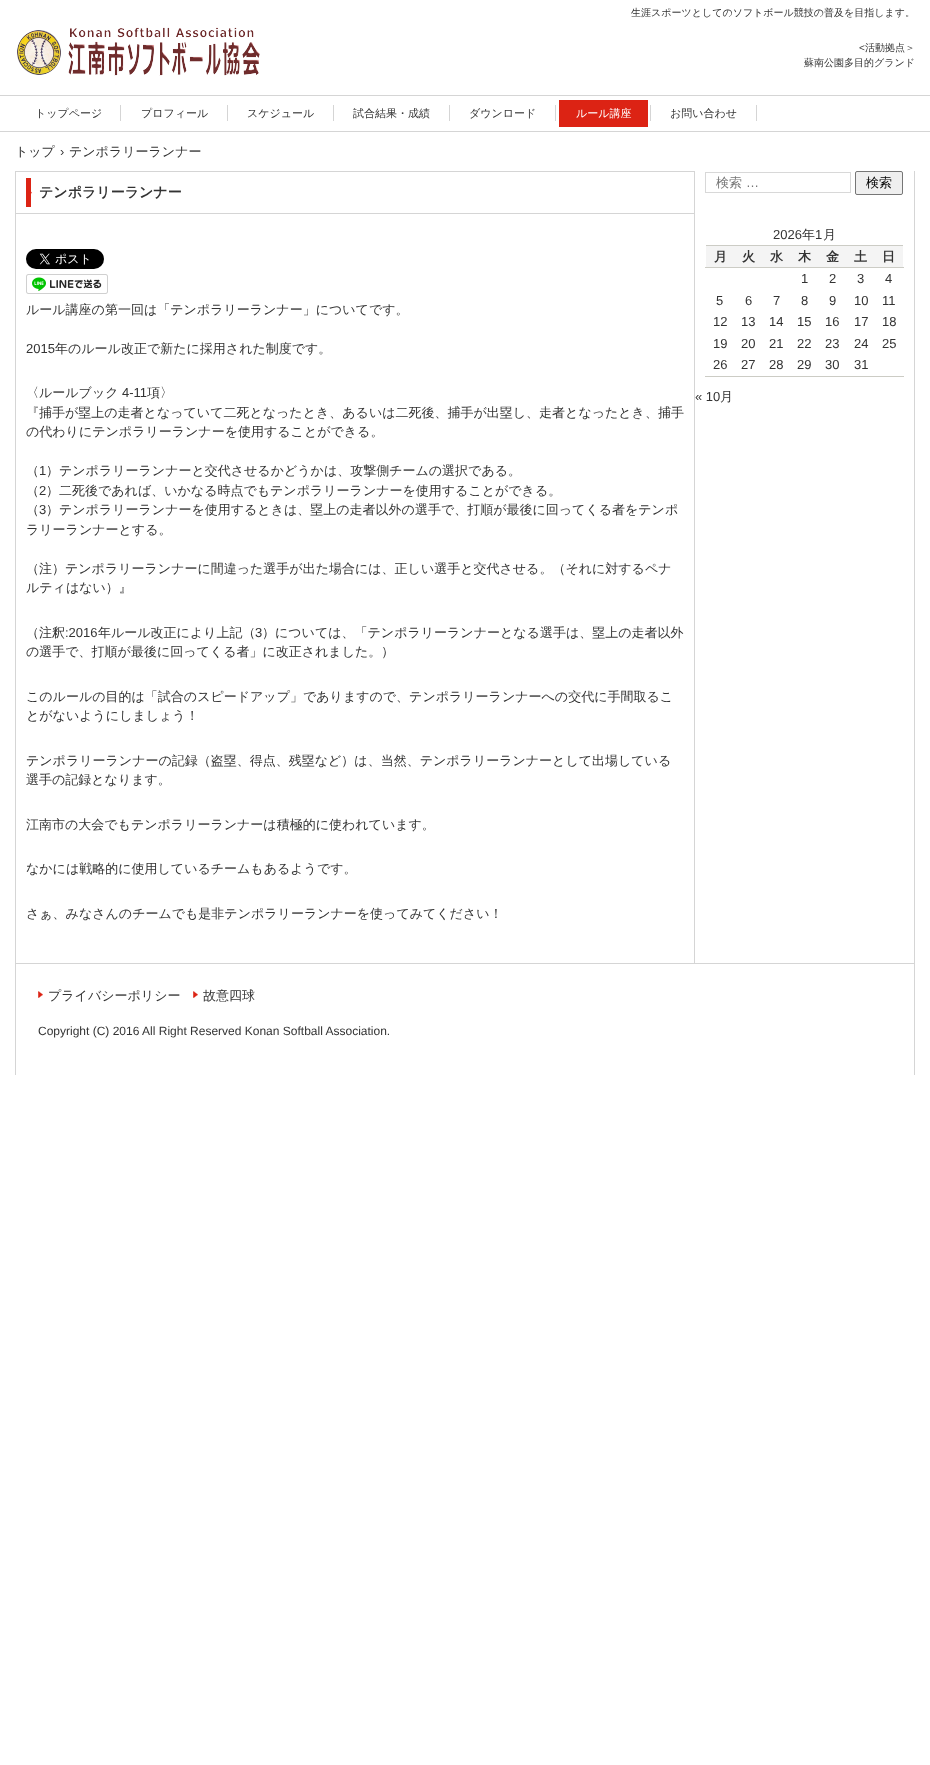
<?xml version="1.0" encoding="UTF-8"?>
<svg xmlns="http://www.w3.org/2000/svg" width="930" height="1765">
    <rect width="100%" height="100%" fill="#FFFFFF"/>
    <text x="631" y="16" font-family="WenQuanYi Zen Hei" font-size="10" font-weight="500" fill="#333333">生涯スポーツとしてのソフトボール競技の普及を目指します。</text>
    <image x="17" y="27" width="243" height="49" href="img_01.png"/>
    <text x="859" y="51" font-family="Liberation Sans" font-size="10" fill="#333333">&lt;</text>
    <text x="865" y="51" font-family="WenQuanYi Zen Hei" font-size="10" font-weight="500" fill="#333333">活動拠点＞</text>
    <text x="804" y="66" font-family="WenQuanYi Zen Hei" font-size="10" font-weight="500" fill="#333333">蘇南公園多目的グランド</text>
    <rect x="0" y="95" width="930" height="1" fill="#D5D5D5"/>
    <rect x="0" y="131" width="930" height="1" fill="#D5D5D5"/>
    <rect x="120" y="105" width="1" height="16" fill="#D5D5D5"/>
    <text x="35" y="117" font-family="WenQuanYi Zen Hei" font-size="11" font-weight="500" fill="#333333">トップページ</text>
    <rect x="227" y="105" width="1" height="16" fill="#D5D5D5"/>
    <text x="141" y="117" font-family="WenQuanYi Zen Hei" font-size="11" font-weight="500" fill="#333333">プロフィール</text>
    <rect x="333" y="105" width="1" height="16" fill="#D5D5D5"/>
    <text x="247" y="117" font-family="WenQuanYi Zen Hei" font-size="11" font-weight="500" fill="#333333">スケジュール</text>
    <rect x="449" y="105" width="1" height="16" fill="#D5D5D5"/>
    <text x="353" y="117" font-family="WenQuanYi Zen Hei" font-size="11" font-weight="500" fill="#333333">試合結果・成績</text>
    <rect x="555" y="105" width="1" height="16" fill="#D5D5D5"/>
    <text x="469" y="117" font-family="WenQuanYi Zen Hei" font-size="11" font-weight="500" fill="#333333">ダウンロード</text>
    <rect x="650" y="105" width="1" height="16" fill="#D5D5D5"/>
    <rect x="559" y="100" width="89" height="27" fill="#DC2314"/>
    <text x="576" y="117" font-family="WenQuanYi Zen Hei" font-size="11" font-weight="500" fill="#FFFFFF">ルール講座</text>
    <rect x="756" y="105" width="1" height="16" fill="#D5D5D5"/>
    <text x="670" y="117" font-family="WenQuanYi Zen Hei" font-size="11" font-weight="500" fill="#333333">お問い合わせ</text>
    <text x="15" y="156" font-family="WenQuanYi Zen Hei" font-size="13" font-weight="500" fill="#333333">トップ</text>
    <text x="60" y="156" font-family="Liberation Sans" font-size="13" fill="#333333">›</text>
    <text x="69" y="156" font-family="WenQuanYi Zen Hei" font-size="13" font-weight="500" fill="#333333">テンポラリーランナー</text>
    <rect x="694" y="171" width="1" height="793" fill="#D5D5D5"/>
    <rect x="914" y="171" width="1" height="904" fill="#D5D5D5"/>
    <rect x="15" y="963" width="900" height="1" fill="#D5D5D5"/>
    <rect x="15" y="171" width="1" height="904" fill="#D5D5D5"/>
    <image x="31" y="191" width="1" height="3" href="img_02.png"/>
    <rect x="16" y="171" width="678" height="1" fill="#D5D5D5"/>
    <rect x="16" y="213" width="678" height="1" fill="#D5D5D5"/>
    <rect x="26" y="178" width="5" height="29" fill="#DC2314"/>
    <text x="39" y="197" font-family="WenQuanYi Zen Hei" font-size="14" font-weight="700" fill="#333333">テンポラリーランナー</text>
    <image x="26" y="249" width="78" height="20" href="img_03.png"/>
    <image x="26" y="274" width="82" height="20" href="img_04.png"/>
    <text x="26" y="314" font-family="WenQuanYi Zen Hei" font-size="13" font-weight="500" fill="#333333">ルール講座の第一回は「テンポラリーランナー」についてです。</text>
    <text x="26" y="353" font-family="Liberation Sans" font-size="13" fill="#333333">2015</text>
    <text x="55" y="353" font-family="WenQuanYi Zen Hei" font-size="13" font-weight="500" fill="#333333">年のルール改正で新たに採用された制度です。</text>
    <text x="26" y="397" font-family="WenQuanYi Zen Hei" font-size="13" font-weight="500" fill="#333333">〈ルールブック</text>
    <text x="122" y="397" font-family="Liberation Sans" font-size="13" fill="#333333">4-11</text>
    <text x="147" y="397" font-family="WenQuanYi Zen Hei" font-size="13" font-weight="500" fill="#333333">項〉</text>
    <text font-family="WenQuanYi Zen Hei" font-size="13" font-weight="500" fill="#333333">
        <tspan x="26" y="417">『捕手が塁上の走者となっていて二死となったとき、あるいは二死後、捕手が出塁し、走者となったとき、捕手</tspan>
        <tspan x="26" y="436">の代わりにテンポラリーランナーを使用することができる。</tspan>
    </text>
    <text x="26" y="475" font-family="WenQuanYi Zen Hei" font-size="13" font-weight="500" fill="#333333">（</text>
    <text x="39" y="475" font-family="Liberation Sans" font-size="13" fill="#333333">1</text>
    <text x="46" y="475" font-family="WenQuanYi Zen Hei" font-size="13" font-weight="500" fill="#333333">）テンポラリーランナーと交代させるかどうかは、攻撃側チームの選択である。</text>
    <text x="26" y="495" font-family="WenQuanYi Zen Hei" font-size="13" font-weight="500" fill="#333333">（</text>
    <text x="39" y="495" font-family="Liberation Sans" font-size="13" fill="#333333">2</text>
    <text x="46" y="495" font-family="WenQuanYi Zen Hei" font-size="13" font-weight="500" fill="#333333">）二死後であれば、いかなる時点でもテンポラリーランナーを使用することができる。</text>
    <text x="26" y="514" font-family="WenQuanYi Zen Hei" font-size="13" font-weight="500" fill="#333333">（</text>
    <text x="39" y="514" font-family="Liberation Sans" font-size="13" fill="#333333">3</text>
    <text x="46" y="514" font-family="WenQuanYi Zen Hei" font-size="13" font-weight="500" fill="#333333">）テンポラリーランナーを使用するときは、塁上の走者以外の選手で、打順が最後に回ってくる者をテンポ</text>
    <text x="26" y="534" font-family="WenQuanYi Zen Hei" font-size="13" font-weight="500" fill="#333333">ラリーランナーとする。</text>
    <text font-family="WenQuanYi Zen Hei" font-size="13" font-weight="500" fill="#333333">
        <tspan x="26" y="573">（注）テンポラリーランナーに間違った選手が出た場合には、正しい選手と交代させる。（それに対するペナ</tspan>
        <tspan x="26" y="592">ルティはない）』</tspan>
    </text>
    <text x="26" y="637" font-family="WenQuanYi Zen Hei" font-size="13" font-weight="500" fill="#333333">（注釈</text>
    <text x="65" y="637" font-family="Liberation Sans" font-size="13" fill="#333333">:2016</text>
    <text x="98" y="637" font-family="WenQuanYi Zen Hei" font-size="13" font-weight="500" fill="#333333">年ルール改正により上記（</text>
    <text x="255" y="637" font-family="Liberation Sans" font-size="13" fill="#333333">3</text>
    <text x="262" y="637" font-family="WenQuanYi Zen Hei" font-size="13" font-weight="500" fill="#333333">）については、「テンポラリーランナーとなる選手は、塁上の走者以外</text>
    <text x="26" y="656" font-family="WenQuanYi Zen Hei" font-size="13" font-weight="500" fill="#333333">の選手で、打順が最後に回ってくる者」に改正されました。）</text>
    <text font-family="WenQuanYi Zen Hei" font-size="13" font-weight="500" fill="#333333">
        <tspan x="26" y="701">このルールの目的は「試合のスピードアップ」でありますので、テンポラリーランナーへの交代に手間取るこ</tspan>
        <tspan x="26" y="720">とがないようにしましょう！</tspan>
    </text>
    <text font-family="WenQuanYi Zen Hei" font-size="13" font-weight="500" fill="#333333">
        <tspan x="26" y="765">テンポラリーランナーの記録（盗塁、得点、残塁など）は、当然、テンポラリーランナーとして出場している</tspan>
        <tspan x="26" y="784">選手の記録となります。</tspan>
    </text>
    <text x="26" y="829" font-family="WenQuanYi Zen Hei" font-size="13" font-weight="500" fill="#333333">江南市の大会でもテンポラリーランナーは積極的に使われています。</text>
    <text x="26" y="873" font-family="WenQuanYi Zen Hei" font-size="13" font-weight="500" fill="#333333">なかには戦略的に使用しているチームもあるようです。</text>
    <text x="26" y="918" font-family="WenQuanYi Zen Hei" font-size="13" font-weight="500" fill="#333333">さぁ、みなさんのチームでも是非テンポラリーランナーを使ってみてください！</text>
    <rect x="705.5" y="172.5" width="145" height="20" fill="none" stroke="#D8D8D8"/>
    <text x="716" y="187" font-family="WenQuanYi Zen Hei" font-size="13" font-weight="500" fill="#757575">検索</text>
    <text x="746" y="187" font-family="Liberation Sans" font-size="13" fill="#757575">…</text>
    <rect x="855.5" y="171.5" width="47" height="23" rx="1.5" fill="#EFEFEF" stroke="#767676"/>
    <text x="866" y="187" font-family="WenQuanYi Zen Hei" font-size="13" font-weight="500" fill="#000000">検索</text>
    <rect x="706" y="245" width="197" height="1" fill="#CCCCC5"/>
    <text x="773" y="239" font-family="Liberation Sans" font-size="13" fill="#333333">2026</text>
    <text x="802" y="239" font-family="WenQuanYi Zen Hei" font-size="13" font-weight="500" fill="#333333">年</text>
    <text x="815" y="239" font-family="Liberation Sans" font-size="13" fill="#333333">1</text>
    <text x="823" y="239" font-family="WenQuanYi Zen Hei" font-size="13" font-weight="500" fill="#333333">月</text>
    <rect x="706" y="246" width="197" height="21" fill="#F4F4F4"/>
    <rect x="705" y="267" width="199" height="1" fill="#CCCCC5"/>
    <text x="714" y="261" font-family="WenQuanYi Zen Hei" font-size="13" font-weight="700" fill="#333333">月</text>
    <text x="742" y="261" font-family="WenQuanYi Zen Hei" font-size="13" font-weight="700" fill="#333333">火</text>
    <text x="770" y="261" font-family="WenQuanYi Zen Hei" font-size="13" font-weight="700" fill="#333333">水</text>
    <text x="798" y="261" font-family="WenQuanYi Zen Hei" font-size="13" font-weight="700" fill="#333333">木</text>
    <text x="826" y="261" font-family="WenQuanYi Zen Hei" font-size="13" font-weight="700" fill="#333333">金</text>
    <text x="854" y="261" font-family="WenQuanYi Zen Hei" font-size="13" font-weight="700" fill="#333333">土</text>
    <text x="882" y="261" font-family="WenQuanYi Zen Hei" font-size="13" font-weight="700" fill="#333333">日</text>
    <rect x="705" y="376" width="199" height="1" fill="#CCCCC5"/>
    <text x="801" y="283" font-family="Liberation Sans" font-size="13" fill="#333333">1</text>
    <text x="829" y="283" font-family="Liberation Sans" font-size="13" fill="#333333">2</text>
    <text x="857" y="283" font-family="Liberation Sans" font-size="13" fill="#333333">3</text>
    <text x="885" y="283" font-family="Liberation Sans" font-size="13" fill="#333333">4</text>
    <text x="716" y="305" font-family="Liberation Sans" font-size="13" fill="#333333">5</text>
    <text x="745" y="305" font-family="Liberation Sans" font-size="13" fill="#333333">6</text>
    <text x="773" y="305" font-family="Liberation Sans" font-size="13" fill="#333333">7</text>
    <text x="801" y="305" font-family="Liberation Sans" font-size="13" fill="#333333">8</text>
    <text x="829" y="305" font-family="Liberation Sans" font-size="13" fill="#333333">9</text>
    <text x="854" y="305" font-family="Liberation Sans" font-size="13" fill="#333333">10</text>
    <text x="882" y="305" font-family="Liberation Sans" font-size="13" fill="#333333">11</text>
    <text x="713" y="326" font-family="Liberation Sans" font-size="13" fill="#333333">12</text>
    <text x="741" y="326" font-family="Liberation Sans" font-size="13" fill="#333333">13</text>
    <text x="769" y="326" font-family="Liberation Sans" font-size="13" fill="#333333">14</text>
    <text x="797" y="326" font-family="Liberation Sans" font-size="13" fill="#333333">15</text>
    <text x="825" y="326" font-family="Liberation Sans" font-size="13" fill="#333333">16</text>
    <text x="854" y="326" font-family="Liberation Sans" font-size="13" fill="#333333">17</text>
    <text x="882" y="326" font-family="Liberation Sans" font-size="13" fill="#333333">18</text>
    <text x="713" y="348" font-family="Liberation Sans" font-size="13" fill="#333333">19</text>
    <text x="741" y="348" font-family="Liberation Sans" font-size="13" fill="#333333">20</text>
    <text x="769" y="348" font-family="Liberation Sans" font-size="13" fill="#333333">21</text>
    <text x="797" y="348" font-family="Liberation Sans" font-size="13" fill="#333333">22</text>
    <text x="825" y="348" font-family="Liberation Sans" font-size="13" fill="#333333">23</text>
    <text x="854" y="348" font-family="Liberation Sans" font-size="13" fill="#333333">24</text>
    <text x="882" y="348" font-family="Liberation Sans" font-size="13" fill="#333333">25</text>
    <text x="713" y="369" font-family="Liberation Sans" font-size="13" fill="#333333">26</text>
    <text x="741" y="369" font-family="Liberation Sans" font-size="13" fill="#333333">27</text>
    <text x="769" y="369" font-family="Liberation Sans" font-size="13" fill="#333333">28</text>
    <text x="797" y="369" font-family="Liberation Sans" font-size="13" fill="#333333">29</text>
    <text x="825" y="369" font-family="Liberation Sans" font-size="13" fill="#333333">30</text>
    <text x="854" y="369" font-family="Liberation Sans" font-size="13" fill="#333333">31</text>
    <text x="695" y="401" font-family="Liberation Sans" font-size="13" fill="#333333">« 10</text>
    <text x="720" y="401" font-family="WenQuanYi Zen Hei" font-size="13" font-weight="500" fill="#333333">月</text>
    <image x="38" y="991" width="5" height="7" href="img_05.png"/>
    <text x="48" y="1000" font-family="WenQuanYi Zen Hei" font-size="13" font-weight="500" fill="#333333">プライバシーポリシー</text>
    <image x="193" y="991" width="5" height="7" href="img_05.png"/>
    <text x="203" y="1000" font-family="WenQuanYi Zen Hei" font-size="13" font-weight="500" fill="#333333">故意四球</text>
    <text x="38" y="1035" font-family="Liberation Sans" font-size="12" fill="#333333">Copyright (C) 2016 All Right Reserved Konan Softball Association.</text>
</svg>
